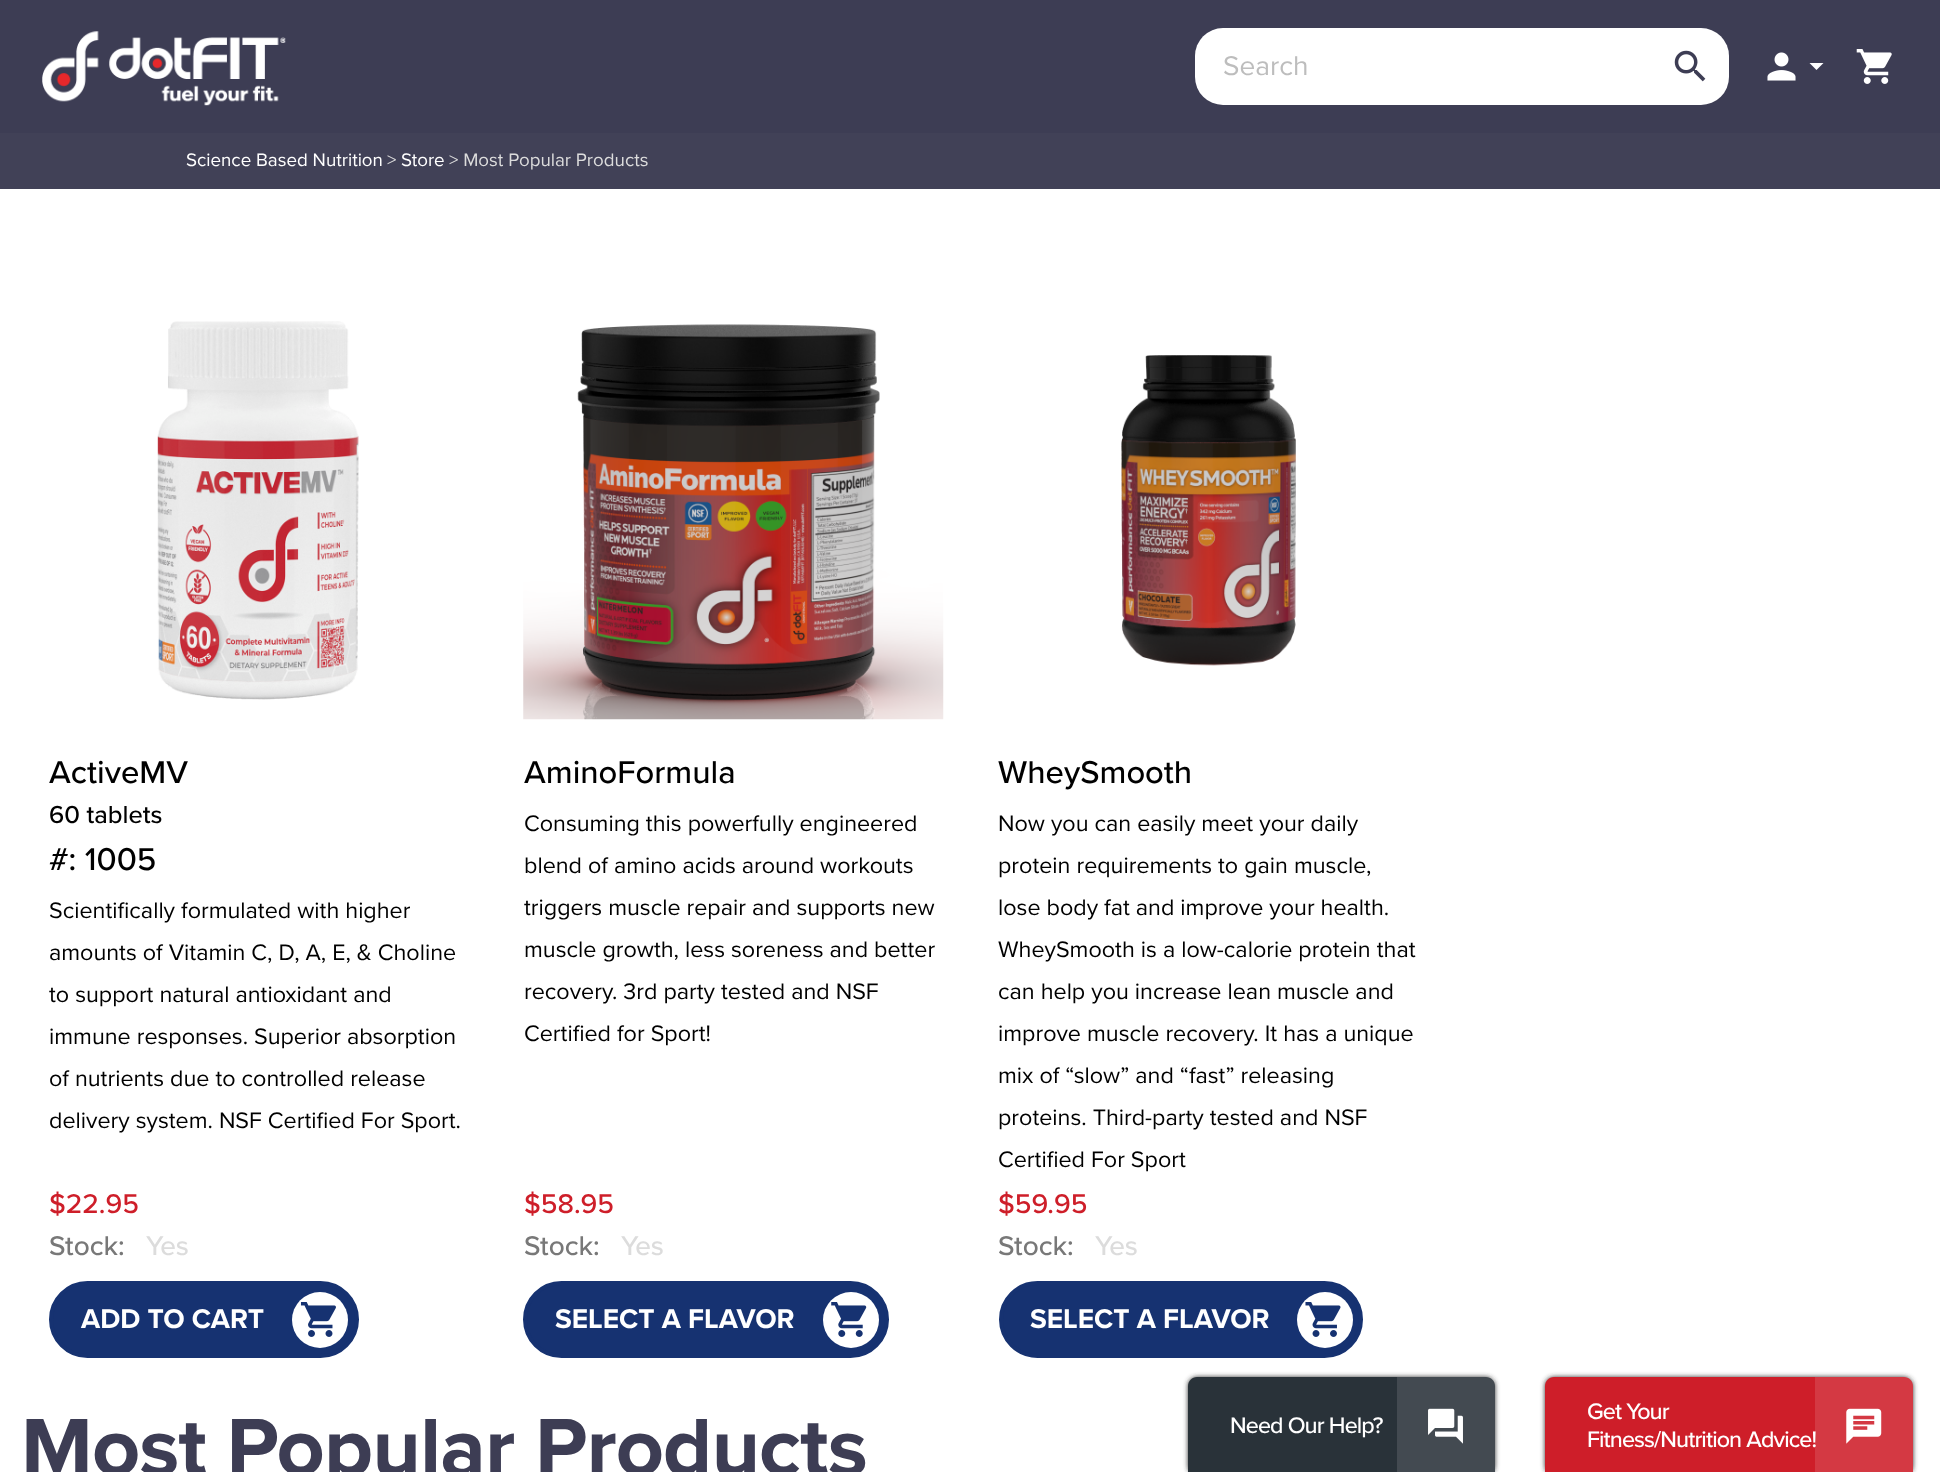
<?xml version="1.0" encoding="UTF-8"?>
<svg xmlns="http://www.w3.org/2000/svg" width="1940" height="1472">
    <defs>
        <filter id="blur1" x="-50%" y="-200%" width="200%" height="500%"><feGaussianBlur stdDeviation="2.5"/></filter>
    </defs>
    <rect width="100%" height="100%" fill="#FFFFFF"/>
    <rect x="0" y="0" width="1940" height="133" fill="#3D3D54"/>
    <image x="42" y="31" width="244" height="75" href="img_01.png"/>
    <rect x="1195" y="28" width="534" height="77" rx="28" fill="#FFFFFF"/>
    <text x="1223" y="75" font-family="Proxima Nova" font-size="28" fill="#BDBDBD">Search</text>
    <image x="1674" y="50" width="32" height="32" href="img_02.png"/>
    <image x="1767" y="52" width="29" height="29" href="img_03.png"/>
    <path d="M 1809.5 63 H 1823.5 L 1816.5 70 Z" fill="#FFFFFF"/>
    <image x="1856" y="49" width="36" height="35" href="img_04.png"/>
    <rect x="0" y="133" width="1940" height="56" fill="#414157"/>
    <text x="186" y="166" font-family="Proxima Nova" font-size="18.75" fill="#FFFFFF">Science Based Nutrition</text>
    <text x="387" y="166" font-family="Proxima Nova" font-size="18.75" fill="#DCDCDC">&gt;</text>
    <text x="401" y="166" font-family="Proxima Nova" font-size="18.75" fill="#FFFFFF">Store</text>
    <text x="449" y="166" font-family="Proxima Nova" font-size="18.75" fill="#DCDCDC">&gt; Most Popular Products</text>
    <image x="157" y="321" width="202" height="379" href="img_05.png"/>
    <text x="49" y="783" font-family="Proxima Nova" font-size="32.75" font-weight="500" fill="#000000">ActiveMV</text>
    <text x="49" y="823" font-family="Proxima Nova" font-size="25.5" font-weight="500" fill="#000000">60 tablets</text>
    <text x="49" y="870" font-family="Proxima Nova" font-size="32.75" font-weight="500" fill="#000000">#: 1005</text>
    <text font-family="Proxima Nova" font-size="23.3" fill="#000000">
        <tspan x="49" y="918">Scientifically formulated with higher</tspan>
        <tspan x="49" y="960">amounts of Vitamin C, D, A, E, &amp; Choline</tspan>
        <tspan x="49" y="1002">to support natural antioxidant and</tspan>
        <tspan x="49" y="1044">immune responses. Superior absorption</tspan>
        <tspan x="49" y="1086">of nutrients due to controlled release</tspan>
        <tspan x="49" y="1128">delivery system. NSF Certified For Sport.</tspan>
    </text>
    <text x="49" y="1213" font-family="Proxima Nova" font-size="28" font-weight="500" fill="#CE1E29">$22.95</text>
    <text x="49" y="1255" font-family="Proxima Nova" font-size="28" font-weight="500" fill="#787878">Stock:</text>
    <text x="146" y="1255" font-family="Proxima Nova" font-size="28" font-weight="500" fill="#DCDCDC">Yes</text>
    <rect x="51" y="1283" width="306" height="73" rx="36.5" fill="#163271" stroke="#163271" stroke-width="4"/>
    <text x="81" y="1328" font-family="Proxima Nova" font-size="28" font-weight="700" fill="#FFFFFF">ADD TO CART</text>
    <circle cx="320" cy="1320" r="28" fill="#FFFFFF"/>
    <image x="300" y="1302" width="36" height="35" href="img_06.png"/>
    <image x="523" y="324" width="421" height="396" href="img_07.png"/>
    <text x="524" y="783" font-family="Proxima Nova" font-size="32.75" font-weight="500" fill="#000000">AminoFormula</text>
    <text font-family="Proxima Nova" font-size="23.3" fill="#000000">
        <tspan x="524" y="831">Consuming this powerfully engineered</tspan>
        <tspan x="524" y="873">blend of amino acids around workouts</tspan>
        <tspan x="524" y="915">triggers muscle repair and supports new</tspan>
        <tspan x="524" y="957">muscle growth, less soreness and better</tspan>
        <tspan x="524" y="999">recovery. 3rd party tested and NSF</tspan>
        <tspan x="524" y="1041">Certified for Sport!</tspan>
    </text>
    <text x="524" y="1213" font-family="Proxima Nova" font-size="28" font-weight="500" fill="#CE1E29">$58.95</text>
    <text x="524" y="1255" font-family="Proxima Nova" font-size="28" font-weight="500" fill="#787878">Stock:</text>
    <text x="621" y="1255" font-family="Proxima Nova" font-size="28" font-weight="500" fill="#DCDCDC">Yes</text>
    <rect x="525" y="1283" width="362" height="73" rx="36.5" fill="#163271" stroke="#163271" stroke-width="4"/>
    <text x="555" y="1328" font-family="Proxima Nova" font-size="28" font-weight="700" fill="#FFFFFF">SELECT A FLAVOR</text>
    <circle cx="851" cy="1320" r="28" fill="#FFFFFF"/>
    <image x="831" y="1302" width="36" height="35" href="img_08.png"/>
    <image x="1121" y="355" width="175" height="311" href="img_09.png"/>
    <text x="998" y="783" font-family="Proxima Nova" font-size="32.75" font-weight="500" fill="#000000">WheySmooth</text>
    <text font-family="Proxima Nova" font-size="23.3" fill="#000000">
        <tspan x="998" y="831">Now you can easily meet your daily</tspan>
        <tspan x="998" y="873">protein requirements to gain muscle,</tspan>
        <tspan x="998" y="915">lose body fat and improve your health.</tspan>
        <tspan x="998" y="957">WheySmooth is a low-calorie protein that</tspan>
        <tspan x="998" y="999">can help you increase lean muscle and</tspan>
        <tspan x="998" y="1041">improve muscle recovery. It has a unique</tspan>
        <tspan x="998" y="1083">mix of “slow” and “fast” releasing</tspan>
        <tspan x="998" y="1125">proteins. Third-party tested and NSF</tspan>
        <tspan x="998" y="1167">Certified For Sport</tspan>
    </text>
    <text x="998" y="1213" font-family="Proxima Nova" font-size="28" font-weight="500" fill="#CE1E29">$59.95</text>
    <text x="998" y="1255" font-family="Proxima Nova" font-size="28" font-weight="500" fill="#787878">Stock:</text>
    <text x="1095" y="1255" font-family="Proxima Nova" font-size="28" font-weight="500" fill="#DCDCDC">Yes</text>
    <rect x="1001" y="1283" width="360" height="73" rx="36.5" fill="#163271" stroke="#163271" stroke-width="4"/>
    <text x="1030" y="1328" font-family="Proxima Nova" font-size="28" font-weight="700" fill="#FFFFFF">SELECT A FLAVOR</text>
    <circle cx="1325" cy="1320" r="28" fill="#FFFFFF"/>
    <image x="1305" y="1302" width="36" height="35" href="img_10.png"/>
    <text x="21" y="1475" font-family="Proxima Nova" font-size="84" font-weight="700" letter-spacing="-0.9" fill="#3D3D54">Most Popular Products</text>
    <rect x="1545" y="1377" width="368" height="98" rx="9" fill="#333333" filter="url(#blur1)"/>
    <path d="M 1554 1377 H 1904 C 1909 1377 1913 1381 1913 1386 V 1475 H 1545 V 1386 C 1545 1381 1549 1377 1554 1377 Z" fill="#CE1E29"/>
    <text font-family="Proxima Nova" font-size="23.3" font-weight="500" letter-spacing="-0.9" fill="#FFFFFF">
        <tspan x="1587" y="1419">Get Your</tspan>
        <tspan x="1587" y="1447">Fitness/Nutrition Advice!</tspan>
    </text>
    <rect x="1815" y="1377" width="98" height="95" fill="#FFFFFF" fill-opacity="0.12"/>
    <image x="1846" y="1408" width="36" height="36" href="img_11.png"/>
    <rect x="1188" y="1377" width="307" height="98" rx="9" fill="#333333" filter="url(#blur1)"/>
    <path d="M 1197 1377 H 1486 C 1491 1377 1495 1381 1495 1386 V 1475 H 1188 V 1386 C 1188 1381 1192 1377 1197 1377 Z" fill="#293239"/>
    <text x="1230" y="1433" font-family="Proxima Nova" font-size="23.3" font-weight="500" letter-spacing="-0.9" fill="#FFFFFF">Need Our Help?</text>
    <rect x="1397" y="1377" width="98" height="95" fill="#FFFFFF" fill-opacity="0.12"/>
    <image x="1428" y="1408" width="35" height="36" href="img_12.png"/>
</svg>
